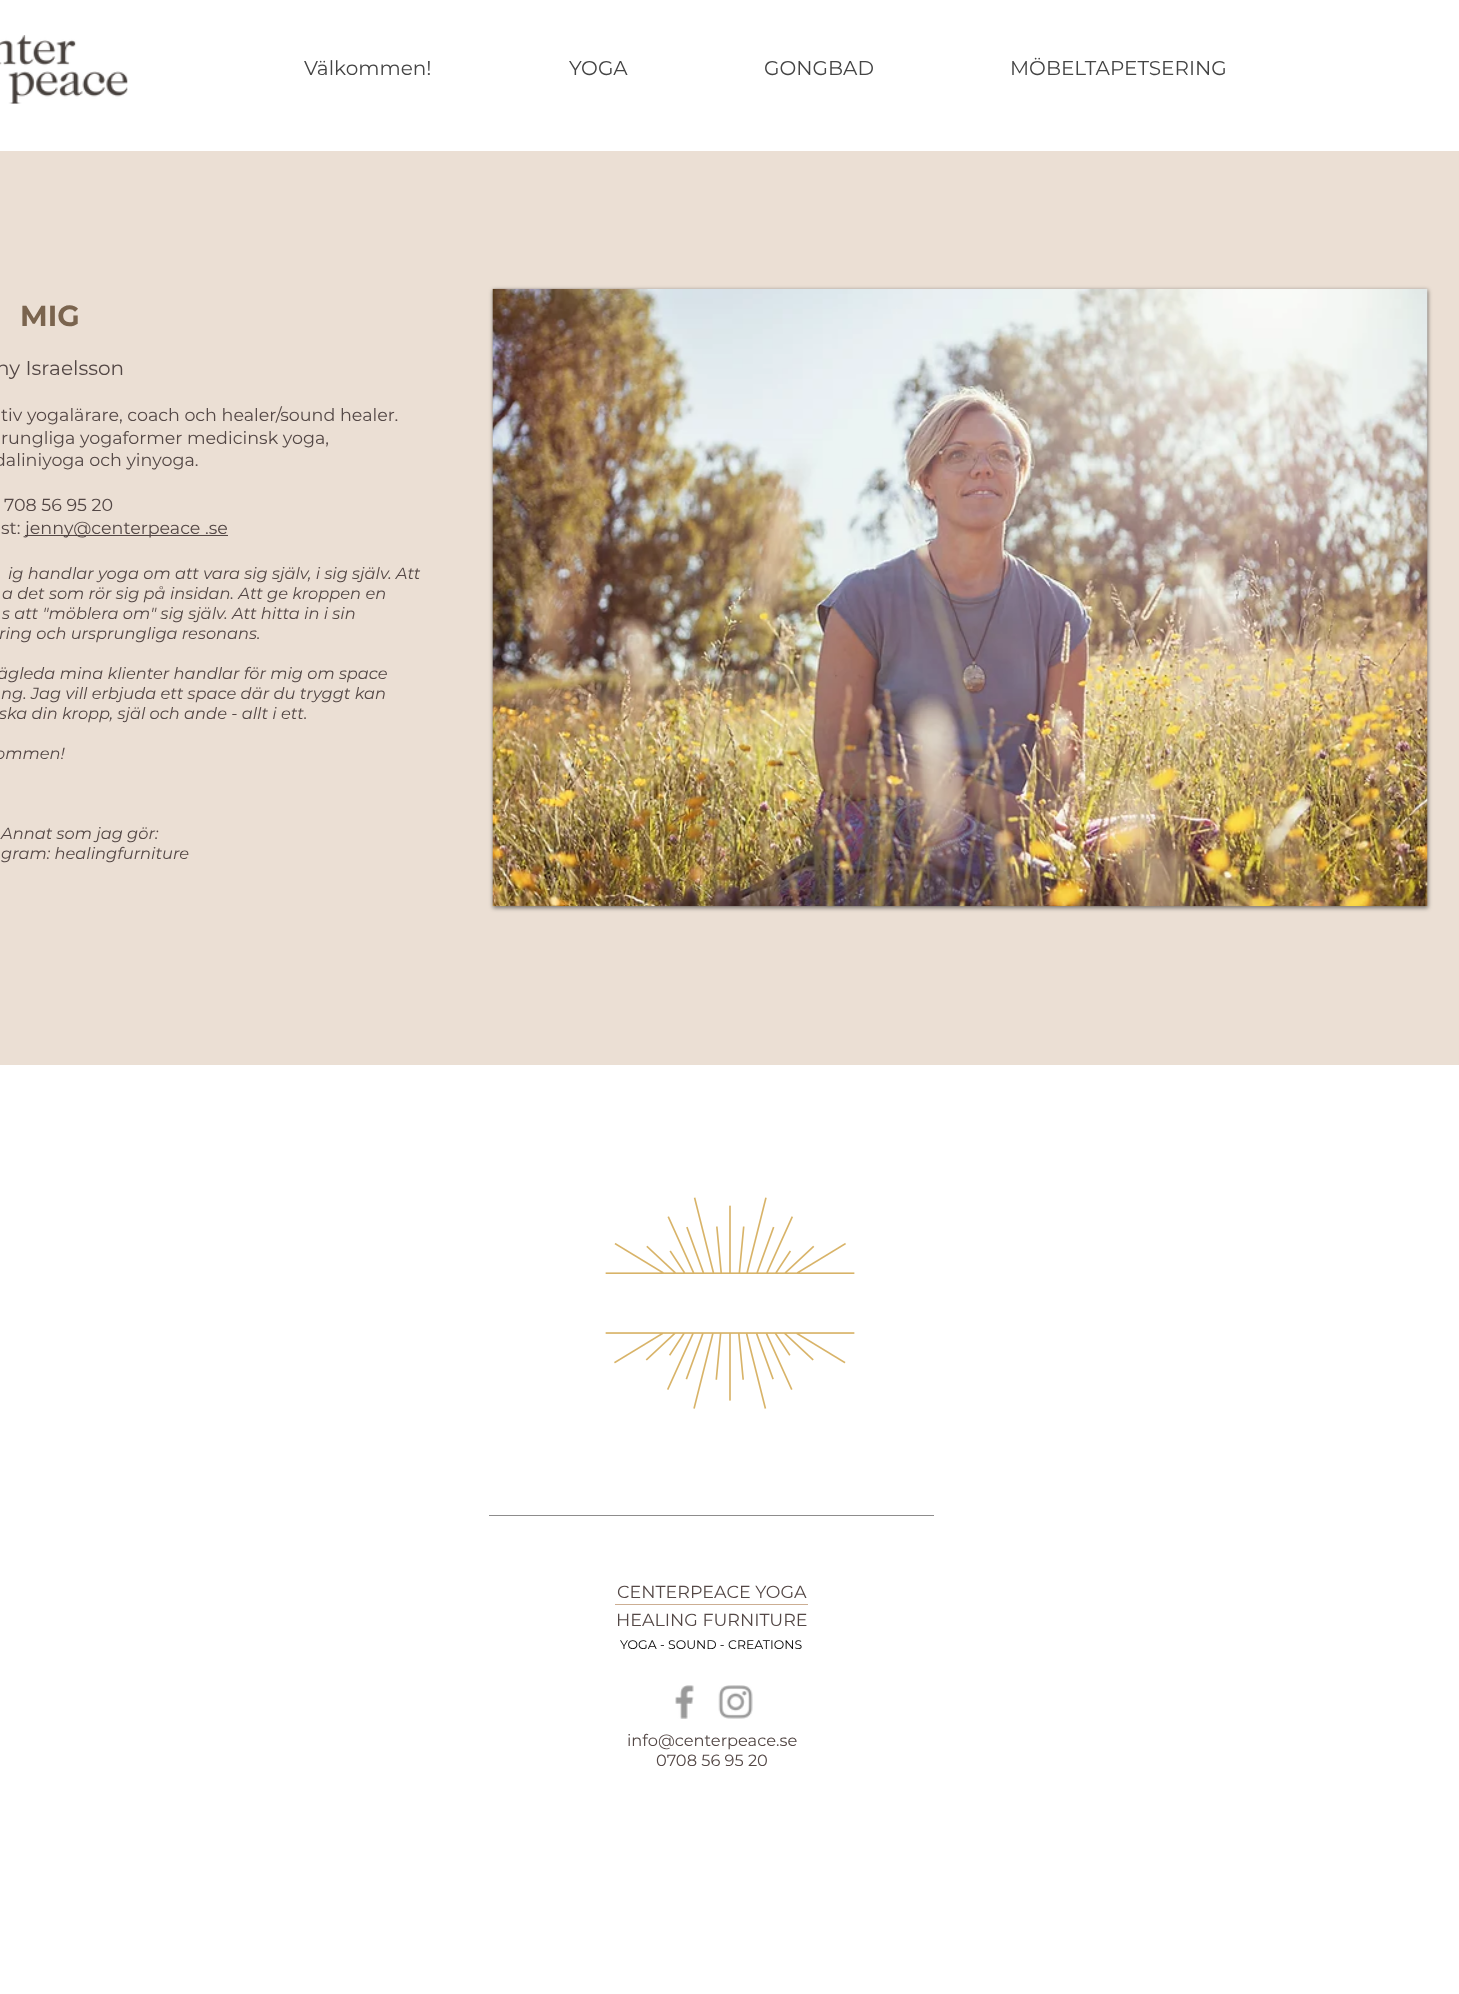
<?xml version="1.0" encoding="UTF-8"?>
<svg xmlns="http://www.w3.org/2000/svg" width="1459" height="1994">
    <defs>
        <filter id="blur1" x="-50%" y="-200%" width="200%" height="500%"><feGaussianBlur stdDeviation="2"/></filter>
    </defs>
    <rect width="100%" height="100%" fill="#FFFFFF"/>
    <image x="0" y="35" width="128" height="69" href="img_01.png"/>
    <text x="304" y="75" font-family="Montserrat" font-size="20" fill="#444444">Välkommen!</text>
    <text x="569" y="75" font-family="Montserrat" font-size="20" fill="#444444">YOGA</text>
    <text x="764" y="75" font-family="Montserrat" font-size="20" fill="#444444">GONGBAD</text>
    <text x="1010" y="75" font-family="Montserrat" font-size="20" fill="#444444">MÖBELTAPETSERING</text>
    <rect x="0" y="151" width="1459" height="914" fill="#EBDFD4"/>
    <text x="20" y="326" font-family="Montserrat" font-size="29" font-weight="700" fill="#7A644E">MIG</text>
    <rect x="493" y="290" width="935" height="618" fill="#000000" fill-opacity="0.5" filter="url(#blur1)"/>
    <image x="492" y="288" width="936" height="619" href="img_02.png"/>
    <text x="-4" y="375" font-family="Montserrat" font-size="20" fill="#534745">ny Israelsson</text>
    <text font-family="Montserrat" font-size="17.5" fill="#534745">
        <tspan x="1" y="421">tiv yogalärare, coach och healer/sound healer.</tspan>
        <tspan x="1" y="444">rungliga yogaformer medicinsk yoga,</tspan>
    </text>
    <text x="-6" y="466" font-family="Montserrat" font-size="17.5" fill="#534745">daliniyoga och yinyoga.</text>
    <text x="4" y="511" font-family="Montserrat" font-size="17.5" fill="#534745">708 56 95 20</text>
    <text x="1" y="534" font-family="Montserrat" font-size="17.5" fill="#534745">st:</text>
    <rect x="25" y="535" width="203" height="1" fill="#534745"/>
    <text x="25" y="534" font-family="Montserrat" font-size="17.5" fill="#534745">jenny@centerpeace .se</text>
    <text x="8" y="579" font-family="Montserrat" font-size="16.25" font-style="italic" fill="#534745">ig handlar yoga om att vara sig själv, i sig själv. Att</text>
    <text font-family="Montserrat" font-size="16.25" font-style="italic" fill="#534745">
        <tspan x="2" y="599">a det som rör sig på insidan. Att ge kroppen en</tspan>
        <tspan x="2" y="619">s att "möblera om" sig själv. Att hitta in i sin</tspan>
    </text>
    <text x="-1" y="639" font-family="Montserrat" font-size="16.25" font-style="italic" fill="#534745">ring och ursprungliga resonans.</text>
    <text x="-3" y="679" font-family="Montserrat" font-size="16.25" font-style="italic" fill="#534745">ägleda mina klienter handlar för mig om space</text>
    <text x="1" y="699" font-family="Montserrat" font-size="16.25" font-style="italic" fill="#534745">ng. Jag vill erbjuda ett space där du tryggt kan</text>
    <text x="-1" y="719" font-family="Montserrat" font-size="16.25" font-style="italic" fill="#534745">ska din kropp, själ och ande - allt i ett.</text>
    <text x="-5" y="759" font-family="Montserrat" font-size="16.25" font-style="italic" fill="#534745">ommen!</text>
    <text font-family="Montserrat" font-size="16.25" font-style="italic" fill="#534745">
        <tspan x="1" y="839">Annat som jag gör:</tspan>
        <tspan x="1" y="859">gram: healingfurniture</tspan>
    </text>
    <image x="605" y="1197" width="250" height="212" href="img_03.png"/>
    <rect x="489" y="1515" width="445" height="1" fill="#8D8C8C"/>
    <text x="617" y="1598" font-family="Montserrat" font-size="17.5" fill="#534745">CENTERPEACE YOGA</text>
    <text x="616" y="1626" font-family="Montserrat" font-size="17.5" fill="#534745">HEALING FURNITURE</text>
    <rect x="615" y="1604" width="193" height="1" fill="#CCAE93"/>
    <text x="620" y="1649" font-family="Montserrat" font-size="12.5" fill="#000000">YOGA - SOUND - CREATIONS</text>
    <image x="675" y="1685" width="19" height="34" href="img_04.png"/>
    <image x="718" y="1685" width="35" height="34" href="img_05.png"/>
    <text x="627" y="1746" font-family="Montserrat" font-size="16.25" fill="#534745">info@centerpeace.se</text>
    <text x="656" y="1766" font-family="Montserrat" font-size="16.25" fill="#534745">0708 56 95 20</text>
</svg>
